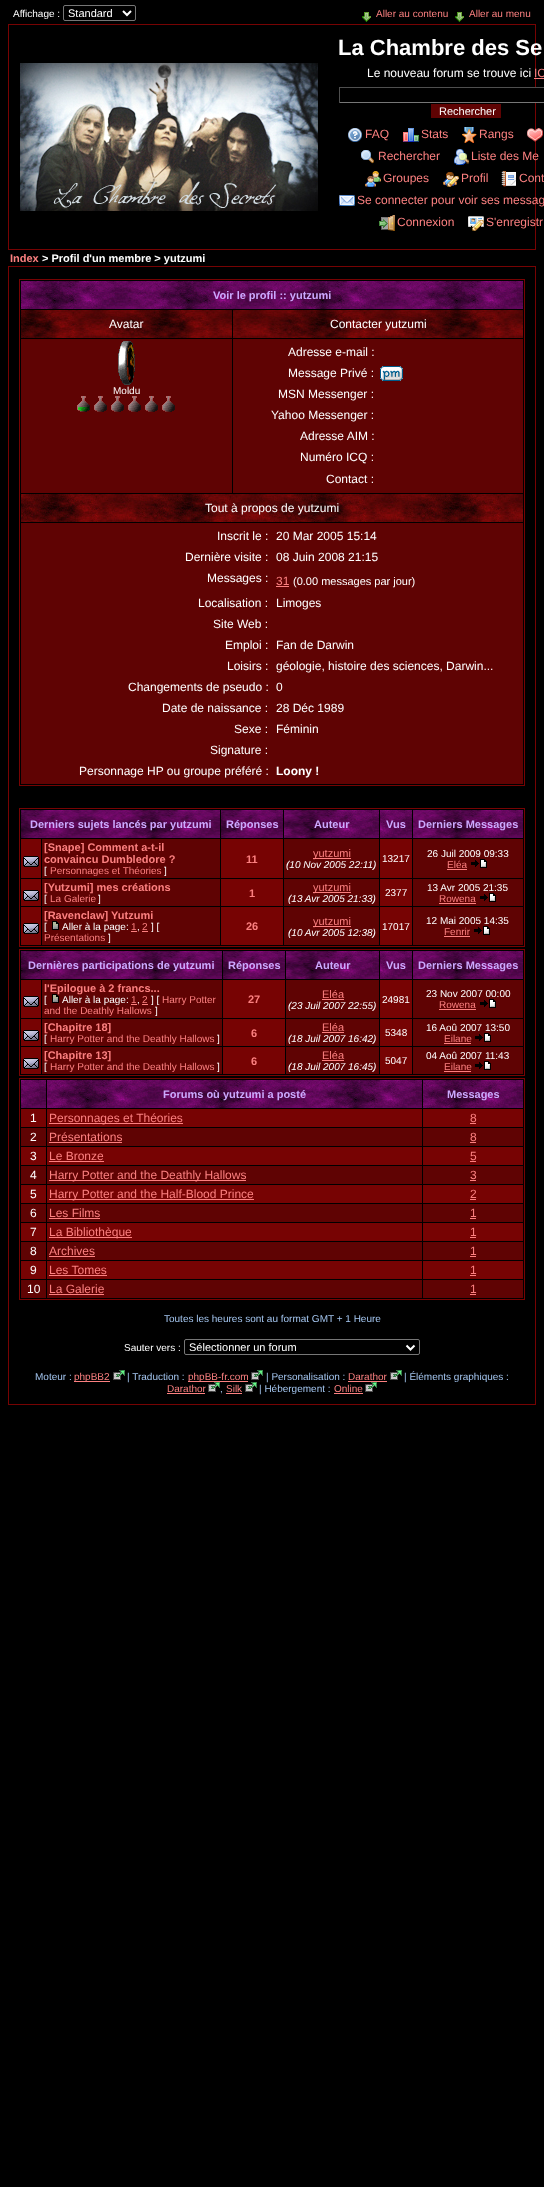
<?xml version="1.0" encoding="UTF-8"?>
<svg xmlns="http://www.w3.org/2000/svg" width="544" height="2187">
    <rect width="100%" height="100%" fill="#000000"/>
    <text x="13" y="17" font-family="Liberation Sans" font-size="10" fill="#FFFFFF">Affichage :</text>
    <rect x="63.5" y="5.5" width="72" height="15" rx="1.5" fill="none" stroke="#767676"/>
    <path d="M 123 11 L 127 15 L 131 11" fill="none" stroke="#FFFFFF" stroke-width="2"/>
    <text x="68" y="17" font-family="Liberation Sans" font-size="11" fill="#FFFFFF">Standard</text>
    <image x="362" y="12" width="9" height="10" href="img_01.png"/>
    <text x="376" y="17" font-family="Liberation Sans" font-size="10" fill="#FC8080">Aller au contenu</text>
    <image x="455" y="12" width="9" height="10" href="img_01.png"/>
    <text x="469" y="17" font-family="Liberation Sans" font-size="10" fill="#FC8080">Aller au menu</text>
    <rect x="8.5" y="24.5" width="527" height="225" fill="none" stroke="#770303"/>
    <image x="20" y="63" width="298" height="148" href="img_02.png"/>
    <text x="338" y="55" font-family="Liberation Sans" font-size="22" font-weight="700" fill="#FFFFFF">La Chambre des Se</text>
    <text x="367" y="77" font-family="Liberation Sans" font-size="12" fill="#FFFFFF">Le nouveau forum se trouve ici</text>
    <text x="534" y="77" font-family="Liberation Sans" font-size="12" fill="#FC8080">IC</text>
    <rect x="534" y="78" width="10" height="1" fill="#FC8080"/>
    <rect x="535" y="88" width="1" height="14" fill="#000000"/>
    <rect x="339" y="87" width="205" height="1" fill="#4F4F4F"/>
    <rect x="339" y="102" width="205" height="1" fill="#767676"/>
    <rect x="339" y="87" width="1" height="16" fill="#4F4F4F"/>
    <rect x="431" y="104" width="70" height="14" fill="#5F0303"/>
    <text x="439" y="115" font-family="Liberation Sans" font-size="11" fill="#FFFFFF">Rechercher</text>
    <image x="348" y="128" width="14" height="14" href="img_03.png"/>
    <text x="365" y="138" font-family="Liberation Sans" font-size="12" fill="#FC8080">FAQ</text>
    <image x="403" y="128" width="16" height="14" href="img_04.png"/>
    <text x="421" y="138" font-family="Liberation Sans" font-size="12" fill="#FC8080">Stats</text>
    <image x="462" y="127" width="15" height="16" href="img_05.png"/>
    <text x="479" y="138" font-family="Liberation Sans" font-size="12" fill="#FC8080">Rangs</text>
    <image x="527" y="128" width="16" height="14" href="img_06.png"/>
    <image x="361" y="150" width="13" height="14" href="img_07.png"/>
    <text x="378" y="160" font-family="Liberation Sans" font-size="12" fill="#FC8080">Rechercher</text>
    <image x="454" y="149" width="15" height="16" href="img_08.png"/>
    <text x="471" y="160" font-family="Liberation Sans" font-size="12" fill="#FC8080">Liste des Me</text>
    <image x="365" y="171" width="16" height="16" href="img_09.png"/>
    <text x="383" y="182" font-family="Liberation Sans" font-size="12" fill="#FC8080">Groupes</text>
    <image x="443" y="172" width="16" height="15" href="img_10.png"/>
    <text x="461" y="182" font-family="Liberation Sans" font-size="12" fill="#FC8080">Profil</text>
    <image x="501" y="171" width="15" height="16" href="img_11.png"/>
    <text x="519" y="182" font-family="Liberation Sans" font-size="12" fill="#FC8080">Cont</text>
    <image x="339" y="195" width="16" height="11" href="img_12.png"/>
    <text x="357" y="204" font-family="Liberation Sans" font-size="12" fill="#FC8080">Se connecter pour voir ses messag</text>
    <image x="379" y="215" width="16" height="16" href="img_13.png"/>
    <text x="397" y="226" font-family="Liberation Sans" font-size="12" fill="#FC8080">Connexion</text>
    <image x="468" y="216" width="16" height="15" href="img_14.png"/>
    <text x="486" y="226" font-family="Liberation Sans" font-size="12" fill="#FC8080">S'enregistr</text>
    <text x="10" y="262" font-family="Liberation Sans" font-size="11" font-weight="700" fill="#FC8080">Index</text>
    <text x="42" y="262" font-family="Liberation Sans" font-size="11" font-weight="700" fill="#FFFFFF">&gt; Profil d'un membre &gt; yutzumi</text>
    <rect x="8.5" y="266.5" width="527" height="1138" fill="none" stroke="#770303"/>
    <rect x="19.5" y="279.5" width="505" height="506" fill="none" stroke="#770303"/>
    <image x="21" y="281" width="502" height="28" href="img_15.png"/>
    <text x="213" y="299" font-family="Liberation Sans" font-size="11" font-weight="700" fill="#CCAAFF">Voir le profil :: yutzumi</text>
    <image x="21" y="310" width="211" height="28" href="img_16.png"/>
    <text x="109" y="328" font-family="Liberation Sans" font-size="12" fill="#FFFFFF">Avatar</text>
    <image x="233" y="310" width="290" height="28" href="img_17.png"/>
    <text x="330" y="328" font-family="Liberation Sans" font-size="12" fill="#FFFFFF">Contacter yutzumi</text>
    <rect x="21" y="339" width="211" height="154" fill="#5F0303"/>
    <image x="118" y="341" width="17" height="44" href="img_18.png"/>
    <text x="113" y="394" font-family="Liberation Sans" font-size="10" fill="#FFFFFF">Moldu</text>
    <image x="77" y="396" width="98" height="16" href="img_19.png"/>
    <rect x="233" y="339" width="290" height="154" fill="#5F0303"/>
    <text font-family="Liberation Sans" font-size="12" fill="#FFFFFF">
        <tspan x="288" y="356">Adresse e-mail :</tspan>
        <tspan x="288" y="377">Message Privé :</tspan>
    </text>
    <image x="380" y="366" width="23" height="15" href="img_20.png"/>
    <text x="278" y="398" font-family="Liberation Sans" font-size="12" fill="#FFFFFF">MSN Messenger :</text>
    <text x="271" y="419" font-family="Liberation Sans" font-size="12" fill="#FFFFFF">Yahoo Messenger :</text>
    <text font-family="Liberation Sans" font-size="12" fill="#FFFFFF">
        <tspan x="300" y="440">Adresse AIM :</tspan>
        <tspan x="300" y="461">Numéro ICQ :</tspan>
    </text>
    <text x="326" y="483" font-family="Liberation Sans" font-size="12" fill="#FFFFFF">Contact :</text>
    <image x="21" y="494" width="502" height="28" href="img_21.png"/>
    <text x="205" y="512" font-family="Liberation Sans" font-size="12" fill="#FFFFFF">Tout à propos de yutzumi</text>
    <rect x="21" y="523" width="502" height="261" fill="#5F0303"/>
    <text x="217" y="540" font-family="Liberation Sans" font-size="12" fill="#FFFFFF">Inscrit le :</text>
    <text x="276" y="540" font-family="Liberation Sans" font-size="12" fill="#FFFFFF">20 Mar 2005 15:14</text>
    <text x="185" y="561" font-family="Liberation Sans" font-size="12" fill="#FFFFFF">Dernière visite :</text>
    <text x="276" y="561" font-family="Liberation Sans" font-size="12" fill="#FFFFFF">08 Juin 2008 21:15</text>
    <text x="207" y="582" font-family="Liberation Sans" font-size="12" fill="#FFFFFF">Messages :</text>
    <text x="276" y="585" font-family="Liberation Sans" font-size="12" fill="#FC8080">31</text>
    <rect x="276" y="586" width="13" height="1" fill="#FC8080"/>
    <text x="293" y="585" font-family="Liberation Sans" font-size="11" fill="#FFFFFF">(0.00 messages par jour)</text>
    <text x="198" y="607" font-family="Liberation Sans" font-size="12" fill="#FFFFFF">Localisation :</text>
    <text x="276" y="607" font-family="Liberation Sans" font-size="12" fill="#FFFFFF">Limoges</text>
    <text x="213" y="628" font-family="Liberation Sans" font-size="12" fill="#FFFFFF">Site Web :</text>
    <text x="225" y="649" font-family="Liberation Sans" font-size="12" fill="#FFFFFF">Emploi :</text>
    <text x="276" y="649" font-family="Liberation Sans" font-size="12" fill="#FFFFFF">Fan de Darwin</text>
    <text x="227" y="670" font-family="Liberation Sans" font-size="12" fill="#FFFFFF">Loisirs :</text>
    <text x="276" y="670" font-family="Liberation Sans" font-size="12" fill="#FFFFFF">géologie, histoire des sciences, Darwin...</text>
    <text x="128" y="691" font-family="Liberation Sans" font-size="12" fill="#FFFFFF">Changements de pseudo :</text>
    <text x="276" y="691" font-family="Liberation Sans" font-size="12" fill="#FFFFFF">0</text>
    <text x="162" y="712" font-family="Liberation Sans" font-size="12" fill="#FFFFFF">Date de naissance :</text>
    <text x="276" y="712" font-family="Liberation Sans" font-size="12" fill="#FFFFFF">28 Déc 1989</text>
    <text x="234" y="733" font-family="Liberation Sans" font-size="12" fill="#FFFFFF">Sexe :</text>
    <text x="276" y="733" font-family="Liberation Sans" font-size="12" fill="#FFFFFF">Féminin</text>
    <text x="210" y="754" font-family="Liberation Sans" font-size="12" fill="#FFFFFF">Signature :</text>
    <text x="79" y="775" font-family="Liberation Sans" font-size="12" fill="#FFFFFF">Personnage HP ou groupe préféré :</text>
    <text x="276" y="775" font-family="Liberation Sans" font-size="12" font-weight="700" fill="#FFFFFF">Loony !</text>
    <rect x="19.5" y="808.5" width="505" height="138" fill="none" stroke="#770303"/>
    <image x="21" y="810" width="199" height="28" href="img_22.png"/>
    <text x="30" y="828" font-family="Liberation Sans" font-size="11" font-weight="700" fill="#CCAAFF">Derniers sujets lancés par yutzumi</text>
    <image x="221" y="810" width="62" height="28" href="img_23.png"/>
    <text x="226" y="828" font-family="Liberation Sans" font-size="11" font-weight="700" fill="#CCAAFF">Réponses</text>
    <image x="284" y="810" width="95" height="28" href="img_24.png"/>
    <text x="314" y="828" font-family="Liberation Sans" font-size="11" font-weight="700" fill="#CCAAFF">Auteur</text>
    <image x="380" y="810" width="32" height="28" href="img_25.png"/>
    <text x="386" y="828" font-family="Liberation Sans" font-size="11" font-weight="700" fill="#CCAAFF">Vus</text>
    <image x="413" y="810" width="110" height="28" href="img_26.png"/>
    <text x="418" y="828" font-family="Liberation Sans" font-size="11" font-weight="700" fill="#CCAAFF">Derniers Messages</text>
    <rect x="21" y="839" width="20" height="39" fill="#770303"/>
    <image x="23" y="856" width="16" height="11" href="img_27.png"/>
    <rect x="42" y="839" width="178" height="39" fill="#5F0303"/>
    <text font-family="Liberation Sans" font-size="11" font-weight="700" fill="#FC8080">
        <tspan x="44" y="851">[Snape] Comment a-t-il</tspan>
        <tspan x="44" y="863">convaincu Dumbledore ?</tspan>
    </text>
    <text x="44" y="874" font-family="Liberation Sans" font-size="10" fill="#FFFFFF">[</text>
    <text x="50" y="874" font-family="Liberation Sans" font-size="10" fill="#FC8080">Personnages et Théories</text>
    <text x="164" y="874" font-family="Liberation Sans" font-size="10" fill="#FFFFFF">]</text>
    <rect x="221" y="839" width="62" height="39" fill="#770303"/>
    <text x="246" y="863" font-family="Liberation Sans" font-size="11" font-weight="700" fill="#FC8080">11</text>
    <rect x="284" y="839" width="95" height="39" fill="#5F0303"/>
    <rect x="313" y="858" width="38" height="1" fill="#FC8080"/>
    <text x="313" y="857" font-family="Liberation Sans" font-size="11" fill="#FC8080">yutzumi</text>
    <text x="286" y="868" font-family="Liberation Sans" font-size="10" font-style="italic" fill="#FFFFFF">(10 Nov 2005 22:11)</text>
    <rect x="380" y="839" width="32" height="39" fill="#770303"/>
    <text x="382" y="862" font-family="Liberation Sans" font-size="10" fill="#FFFFFF">13217</text>
    <rect x="413" y="839" width="110" height="39" fill="#5F0303"/>
    <text x="427" y="857" font-family="Liberation Sans" font-size="10" fill="#FFFFFF">26 Juil 2009 09:33</text>
    <text x="447" y="868" font-family="Liberation Sans" font-size="10" fill="#FC8080">Eléa</text>
    <rect x="447" y="869" width="20" height="1" fill="#FC8080"/>
    <image x="471" y="859" width="16" height="9" href="img_28.png"/>
    <rect x="21" y="879" width="20" height="27" fill="#770303"/>
    <image x="23" y="890" width="16" height="11" href="img_27.png"/>
    <rect x="42" y="879" width="178" height="27" fill="#5F0303"/>
    <text x="44" y="891" font-family="Liberation Sans" font-size="11" font-weight="700" fill="#FC8080">[Yutzumi] mes créations</text>
    <text x="44" y="902" font-family="Liberation Sans" font-size="10" fill="#FFFFFF">[</text>
    <text x="50" y="902" font-family="Liberation Sans" font-size="10" fill="#FC8080">La Galerie</text>
    <text x="98" y="902" font-family="Liberation Sans" font-size="10" fill="#FFFFFF">]</text>
    <rect x="221" y="879" width="62" height="27" fill="#770303"/>
    <text x="249" y="897" font-family="Liberation Sans" font-size="11" font-weight="700" fill="#FC8080">1</text>
    <rect x="284" y="879" width="95" height="27" fill="#5F0303"/>
    <rect x="313" y="892" width="38" height="1" fill="#FC8080"/>
    <text x="313" y="891" font-family="Liberation Sans" font-size="11" fill="#FC8080">yutzumi</text>
    <text x="288" y="902" font-family="Liberation Sans" font-size="10" font-style="italic" fill="#FFFFFF">(13 Avr 2005 21:33)</text>
    <rect x="380" y="879" width="32" height="27" fill="#770303"/>
    <text x="385" y="896" font-family="Liberation Sans" font-size="10" fill="#FFFFFF">2377</text>
    <rect x="413" y="879" width="110" height="27" fill="#5F0303"/>
    <text x="427" y="891" font-family="Liberation Sans" font-size="10" fill="#FFFFFF">13 Avr 2005 21:35</text>
    <text x="439" y="902" font-family="Liberation Sans" font-size="10" fill="#FC8080">Rowena</text>
    <rect x="439" y="903" width="37" height="1" fill="#FC8080"/>
    <image x="480" y="893" width="16" height="9" href="img_28.png"/>
    <rect x="21" y="907" width="20" height="38" fill="#770303"/>
    <image x="23" y="923" width="16" height="11" href="img_27.png"/>
    <rect x="42" y="907" width="178" height="38" fill="#5F0303"/>
    <text x="44" y="919" font-family="Liberation Sans" font-size="11" font-weight="700" fill="#FC8080">[Ravenclaw] Yutzumi</text>
    <text x="44" y="930" font-family="Liberation Sans" font-size="10" fill="#FFFFFF">[</text>
    <image x="52" y="921" width="7" height="9" href="img_29.png"/>
    <text x="62" y="930" font-family="Liberation Sans" font-size="10" fill="#FFFFFF">Aller à la page:</text>
    <text x="131" y="930" font-family="Liberation Sans" font-size="10" fill="#FC8080">1</text>
    <text x="137" y="930" font-family="Liberation Sans" font-size="10" fill="#FFFFFF">,</text>
    <rect x="131" y="931" width="6" height="1" fill="#FC8080"/>
    <rect x="142" y="931" width="6" height="1" fill="#FC8080"/>
    <text x="142" y="930" font-family="Liberation Sans" font-size="10" fill="#FC8080">2</text>
    <text x="151" y="930" font-family="Liberation Sans" font-size="10" fill="#FFFFFF">] [</text>
    <text x="44" y="941" font-family="Liberation Sans" font-size="10" fill="#FC8080">Présentations</text>
    <text x="108" y="941" font-family="Liberation Sans" font-size="10" fill="#FFFFFF">]</text>
    <rect x="221" y="907" width="62" height="38" fill="#770303"/>
    <text x="246" y="930" font-family="Liberation Sans" font-size="11" font-weight="700" fill="#FC8080">26</text>
    <rect x="284" y="907" width="95" height="38" fill="#5F0303"/>
    <rect x="313" y="926" width="38" height="1" fill="#FC8080"/>
    <text x="313" y="925" font-family="Liberation Sans" font-size="11" fill="#FC8080">yutzumi</text>
    <text x="288" y="936" font-family="Liberation Sans" font-size="10" font-style="italic" fill="#FFFFFF">(10 Avr 2005 12:38)</text>
    <rect x="380" y="907" width="32" height="38" fill="#770303"/>
    <text x="382" y="930" font-family="Liberation Sans" font-size="10" fill="#FFFFFF">17017</text>
    <rect x="413" y="907" width="110" height="38" fill="#5F0303"/>
    <text x="426" y="924" font-family="Liberation Sans" font-size="10" fill="#FFFFFF">12 Mai 2005 14:35</text>
    <text x="444" y="935" font-family="Liberation Sans" font-size="10" fill="#FC8080">Fenrir</text>
    <rect x="444" y="936" width="26" height="1" fill="#FC8080"/>
    <image x="474" y="926" width="16" height="9" href="img_28.png"/>
    <rect x="19.5" y="949.5" width="505" height="126" fill="none" stroke="#770303"/>
    <image x="21" y="951" width="201" height="28" href="img_30.png"/>
    <text x="28" y="969" font-family="Liberation Sans" font-size="11" font-weight="700" fill="#CCAAFF">Dernières participations de yutzumi</text>
    <image x="223" y="951" width="62" height="28" href="img_23.png"/>
    <text x="228" y="969" font-family="Liberation Sans" font-size="11" font-weight="700" fill="#CCAAFF">Réponses</text>
    <image x="286" y="951" width="93" height="28" href="img_31.png"/>
    <text x="315" y="969" font-family="Liberation Sans" font-size="11" font-weight="700" fill="#CCAAFF">Auteur</text>
    <image x="380" y="951" width="32" height="28" href="img_25.png"/>
    <text x="386" y="969" font-family="Liberation Sans" font-size="11" font-weight="700" fill="#CCAAFF">Vus</text>
    <image x="413" y="951" width="110" height="28" href="img_26.png"/>
    <text x="418" y="969" font-family="Liberation Sans" font-size="11" font-weight="700" fill="#CCAAFF">Derniers Messages</text>
    <rect x="21" y="980" width="20" height="38" fill="#770303"/>
    <image x="23" y="996" width="16" height="11" href="img_27.png"/>
    <rect x="42" y="980" width="180" height="38" fill="#5F0303"/>
    <text x="44" y="992" font-family="Liberation Sans" font-size="11" font-weight="700" fill="#FC8080">l'Epilogue à 2 francs...</text>
    <text x="44" y="1003" font-family="Liberation Sans" font-size="10" fill="#FFFFFF">[</text>
    <image x="52" y="994" width="7" height="9" href="img_32.png"/>
    <text x="62" y="1003" font-family="Liberation Sans" font-size="10" fill="#FFFFFF">Aller à la page:</text>
    <text x="131" y="1003" font-family="Liberation Sans" font-size="10" fill="#FC8080">1</text>
    <text x="137" y="1003" font-family="Liberation Sans" font-size="10" fill="#FFFFFF">,</text>
    <rect x="131" y="1004" width="6" height="1" fill="#FC8080"/>
    <rect x="142" y="1004" width="6" height="1" fill="#FC8080"/>
    <text x="142" y="1003" font-family="Liberation Sans" font-size="10" fill="#FC8080">2</text>
    <text x="151" y="1003" font-family="Liberation Sans" font-size="10" fill="#FFFFFF">] [</text>
    <text x="162" y="1003" font-family="Liberation Sans" font-size="10" fill="#FC8080">Harry Potter</text>
    <text x="44" y="1014" font-family="Liberation Sans" font-size="10" fill="#FC8080">and the Deathly Hallows</text>
    <text x="155" y="1014" font-family="Liberation Sans" font-size="10" fill="#FFFFFF">]</text>
    <rect x="223" y="980" width="62" height="38" fill="#770303"/>
    <text x="248" y="1003" font-family="Liberation Sans" font-size="11" font-weight="700" fill="#FC8080">27</text>
    <rect x="286" y="980" width="93" height="38" fill="#5F0303"/>
    <text x="322" y="998" font-family="Liberation Sans" font-size="11" fill="#FC8080">Eléa</text>
    <rect x="322" y="999" width="22" height="1" fill="#FC8080"/>
    <text x="288" y="1009" font-family="Liberation Sans" font-size="10" font-style="italic" fill="#FFFFFF">(23 Juil 2007 22:55)</text>
    <rect x="380" y="980" width="32" height="38" fill="#770303"/>
    <text x="382" y="1003" font-family="Liberation Sans" font-size="10" fill="#FFFFFF">24981</text>
    <rect x="413" y="980" width="110" height="38" fill="#5F0303"/>
    <text x="426" y="997" font-family="Liberation Sans" font-size="10" fill="#FFFFFF">23 Nov 2007 00:00</text>
    <text x="439" y="1008" font-family="Liberation Sans" font-size="10" fill="#FC8080">Rowena</text>
    <rect x="439" y="1009" width="37" height="1" fill="#FC8080"/>
    <image x="480" y="999" width="16" height="9" href="img_28.png"/>
    <rect x="21" y="1019" width="20" height="27" fill="#770303"/>
    <image x="23" y="1030" width="16" height="11" href="img_27.png"/>
    <rect x="42" y="1019" width="180" height="27" fill="#5F0303"/>
    <text x="44" y="1031" font-family="Liberation Sans" font-size="11" font-weight="700" fill="#FC8080">[Chapitre 18]</text>
    <text x="44" y="1042" font-family="Liberation Sans" font-size="10" fill="#FFFFFF">[</text>
    <text x="50" y="1042" font-family="Liberation Sans" font-size="10" fill="#FC8080">Harry Potter and the Deathly Hallows</text>
    <text x="217" y="1042" font-family="Liberation Sans" font-size="10" fill="#FFFFFF">]</text>
    <rect x="223" y="1019" width="62" height="27" fill="#770303"/>
    <text x="251" y="1037" font-family="Liberation Sans" font-size="11" font-weight="700" fill="#FC8080">6</text>
    <rect x="286" y="1019" width="93" height="27" fill="#5F0303"/>
    <text x="322" y="1031" font-family="Liberation Sans" font-size="11" fill="#FC8080">Eléa</text>
    <rect x="322" y="1032" width="22" height="1" fill="#FC8080"/>
    <text x="288" y="1042" font-family="Liberation Sans" font-size="10" font-style="italic" fill="#FFFFFF">(18 Juil 2007 16:42)</text>
    <rect x="380" y="1019" width="32" height="27" fill="#770303"/>
    <text x="385" y="1036" font-family="Liberation Sans" font-size="10" fill="#FFFFFF">5348</text>
    <rect x="413" y="1019" width="110" height="27" fill="#5F0303"/>
    <text x="426" y="1031" font-family="Liberation Sans" font-size="10" fill="#FFFFFF">16 Aoû 2007 13:50</text>
    <text x="444" y="1042" font-family="Liberation Sans" font-size="10" fill="#FC8080">Eilane</text>
    <rect x="444" y="1043" width="27" height="1" fill="#FC8080"/>
    <image x="475" y="1033" width="16" height="9" href="img_28.png"/>
    <rect x="21" y="1047" width="20" height="27" fill="#770303"/>
    <image x="23" y="1058" width="16" height="11" href="img_27.png"/>
    <rect x="42" y="1047" width="180" height="27" fill="#5F0303"/>
    <text x="44" y="1059" font-family="Liberation Sans" font-size="11" font-weight="700" fill="#FC8080">[Chapitre 13]</text>
    <text x="44" y="1070" font-family="Liberation Sans" font-size="10" fill="#FFFFFF">[</text>
    <text x="50" y="1070" font-family="Liberation Sans" font-size="10" fill="#FC8080">Harry Potter and the Deathly Hallows</text>
    <text x="217" y="1070" font-family="Liberation Sans" font-size="10" fill="#FFFFFF">]</text>
    <rect x="223" y="1047" width="62" height="27" fill="#770303"/>
    <text x="251" y="1065" font-family="Liberation Sans" font-size="11" font-weight="700" fill="#FC8080">6</text>
    <rect x="286" y="1047" width="93" height="27" fill="#5F0303"/>
    <text x="322" y="1059" font-family="Liberation Sans" font-size="11" fill="#FC8080">Eléa</text>
    <rect x="322" y="1060" width="22" height="1" fill="#FC8080"/>
    <text x="288" y="1070" font-family="Liberation Sans" font-size="10" font-style="italic" fill="#FFFFFF">(18 Juil 2007 16:45)</text>
    <rect x="380" y="1047" width="32" height="27" fill="#770303"/>
    <text x="385" y="1064" font-family="Liberation Sans" font-size="10" fill="#FFFFFF">5047</text>
    <rect x="413" y="1047" width="110" height="27" fill="#5F0303"/>
    <text x="426" y="1059" font-family="Liberation Sans" font-size="10" fill="#FFFFFF">04 Aoû 2007 11:43</text>
    <text x="444" y="1070" font-family="Liberation Sans" font-size="10" fill="#FC8080">Eilane</text>
    <rect x="444" y="1071" width="27" height="1" fill="#FC8080"/>
    <image x="475" y="1061" width="16" height="9" href="img_28.png"/>
    <rect x="19.5" y="1078.5" width="505" height="221" fill="none" stroke="#770303"/>
    <image x="21" y="1080" width="25" height="28" href="img_33.png"/>
    <image x="47" y="1080" width="375" height="28" href="img_34.png"/>
    <text x="163" y="1098" font-family="Liberation Sans" font-size="11" font-weight="700" fill="#CCAAFF">Forums où yutzumi a posté</text>
    <image x="423" y="1080" width="100" height="28" href="img_35.png"/>
    <text x="447" y="1098" font-family="Liberation Sans" font-size="11" font-weight="700" fill="#CCAAFF">Messages</text>
    <rect x="21" y="1109" width="25" height="18" fill="#770303"/>
    <text x="30" y="1122" font-family="Liberation Sans" font-size="12" fill="#FFFFFF">1</text>
    <rect x="47" y="1109" width="375" height="18" fill="#770303"/>
    <rect x="49" y="1123" width="134" height="1" fill="#FC8080"/>
    <text x="49" y="1122" font-family="Liberation Sans" font-size="12" fill="#FC8080">Personnages et Théories</text>
    <rect x="423" y="1109" width="100" height="18" fill="#770303"/>
    <text x="470" y="1122" font-family="Liberation Sans" font-size="12" fill="#FC8080">8</text>
    <rect x="470" y="1123" width="6" height="1" fill="#FC8080"/>
    <rect x="21" y="1128" width="25" height="18" fill="#5F0303"/>
    <text x="30" y="1141" font-family="Liberation Sans" font-size="12" fill="#FFFFFF">2</text>
    <rect x="47" y="1128" width="375" height="18" fill="#5F0303"/>
    <text x="49" y="1141" font-family="Liberation Sans" font-size="12" fill="#FC8080">Présentations</text>
    <rect x="49" y="1142" width="73" height="1" fill="#FC8080"/>
    <rect x="423" y="1128" width="100" height="18" fill="#5F0303"/>
    <text x="470" y="1141" font-family="Liberation Sans" font-size="12" fill="#FC8080">8</text>
    <rect x="470" y="1142" width="6" height="1" fill="#FC8080"/>
    <rect x="21" y="1147" width="25" height="18" fill="#770303"/>
    <text x="30" y="1160" font-family="Liberation Sans" font-size="12" fill="#FFFFFF">3</text>
    <rect x="47" y="1147" width="375" height="18" fill="#770303"/>
    <text x="49" y="1160" font-family="Liberation Sans" font-size="12" fill="#FC8080">Le Bronze</text>
    <rect x="49" y="1161" width="55" height="1" fill="#FC8080"/>
    <rect x="423" y="1147" width="100" height="18" fill="#770303"/>
    <text x="470" y="1160" font-family="Liberation Sans" font-size="12" fill="#FC8080">5</text>
    <rect x="470" y="1161" width="6" height="1" fill="#FC8080"/>
    <rect x="21" y="1166" width="25" height="18" fill="#5F0303"/>
    <text x="30" y="1179" font-family="Liberation Sans" font-size="12" fill="#FFFFFF">4</text>
    <rect x="47" y="1166" width="375" height="18" fill="#5F0303"/>
    <rect x="49" y="1180" width="197" height="1" fill="#FC8080"/>
    <text x="49" y="1179" font-family="Liberation Sans" font-size="12" fill="#FC8080">Harry Potter and the Deathly Hallows</text>
    <rect x="423" y="1166" width="100" height="18" fill="#5F0303"/>
    <text x="470" y="1179" font-family="Liberation Sans" font-size="12" fill="#FC8080">3</text>
    <rect x="470" y="1180" width="6" height="1" fill="#FC8080"/>
    <rect x="21" y="1185" width="25" height="18" fill="#770303"/>
    <text x="30" y="1198" font-family="Liberation Sans" font-size="12" fill="#FFFFFF">5</text>
    <rect x="47" y="1185" width="375" height="18" fill="#770303"/>
    <rect x="49" y="1199" width="205" height="1" fill="#FC8080"/>
    <text x="49" y="1198" font-family="Liberation Sans" font-size="12" fill="#FC8080">Harry Potter and the Half-Blood Prince</text>
    <rect x="423" y="1185" width="100" height="18" fill="#770303"/>
    <text x="470" y="1198" font-family="Liberation Sans" font-size="12" fill="#FC8080">2</text>
    <rect x="470" y="1199" width="6" height="1" fill="#FC8080"/>
    <rect x="21" y="1204" width="25" height="18" fill="#5F0303"/>
    <text x="30" y="1217" font-family="Liberation Sans" font-size="12" fill="#FFFFFF">6</text>
    <rect x="47" y="1204" width="375" height="18" fill="#5F0303"/>
    <text x="49" y="1217" font-family="Liberation Sans" font-size="12" fill="#FC8080">Les Films</text>
    <rect x="49" y="1218" width="51" height="1" fill="#FC8080"/>
    <rect x="423" y="1204" width="100" height="18" fill="#5F0303"/>
    <text x="470" y="1217" font-family="Liberation Sans" font-size="12" fill="#FC8080">1</text>
    <rect x="470" y="1218" width="6" height="1" fill="#FC8080"/>
    <rect x="21" y="1223" width="25" height="18" fill="#770303"/>
    <text x="30" y="1236" font-family="Liberation Sans" font-size="12" fill="#FFFFFF">7</text>
    <rect x="47" y="1223" width="375" height="18" fill="#770303"/>
    <rect x="49" y="1237" width="83" height="1" fill="#FC8080"/>
    <text x="49" y="1236" font-family="Liberation Sans" font-size="12" fill="#FC8080">La Bibliothèque</text>
    <rect x="423" y="1223" width="100" height="18" fill="#770303"/>
    <text x="470" y="1236" font-family="Liberation Sans" font-size="12" fill="#FC8080">1</text>
    <rect x="470" y="1237" width="6" height="1" fill="#FC8080"/>
    <rect x="21" y="1242" width="25" height="18" fill="#5F0303"/>
    <text x="30" y="1255" font-family="Liberation Sans" font-size="12" fill="#FFFFFF">8</text>
    <rect x="47" y="1242" width="375" height="18" fill="#5F0303"/>
    <text x="49" y="1255" font-family="Liberation Sans" font-size="12" fill="#FC8080">Archives</text>
    <rect x="49" y="1256" width="46" height="1" fill="#FC8080"/>
    <rect x="423" y="1242" width="100" height="18" fill="#5F0303"/>
    <text x="470" y="1255" font-family="Liberation Sans" font-size="12" fill="#FC8080">1</text>
    <rect x="470" y="1256" width="6" height="1" fill="#FC8080"/>
    <rect x="21" y="1261" width="25" height="18" fill="#770303"/>
    <text x="30" y="1274" font-family="Liberation Sans" font-size="12" fill="#FFFFFF">9</text>
    <rect x="47" y="1261" width="375" height="18" fill="#770303"/>
    <text x="49" y="1274" font-family="Liberation Sans" font-size="12" fill="#FC8080">Les Tomes</text>
    <rect x="49" y="1275" width="58" height="1" fill="#FC8080"/>
    <rect x="423" y="1261" width="100" height="18" fill="#770303"/>
    <text x="470" y="1274" font-family="Liberation Sans" font-size="12" fill="#FC8080">1</text>
    <rect x="470" y="1275" width="6" height="1" fill="#FC8080"/>
    <rect x="21" y="1280" width="25" height="18" fill="#5F0303"/>
    <text x="27" y="1293" font-family="Liberation Sans" font-size="12" fill="#FFFFFF">10</text>
    <rect x="47" y="1280" width="375" height="18" fill="#5F0303"/>
    <text x="49" y="1293" font-family="Liberation Sans" font-size="12" fill="#FC8080">La Galerie</text>
    <rect x="49" y="1294" width="55" height="1" fill="#FC8080"/>
    <rect x="423" y="1280" width="100" height="18" fill="#5F0303"/>
    <text x="470" y="1293" font-family="Liberation Sans" font-size="12" fill="#FC8080">1</text>
    <rect x="470" y="1294" width="6" height="1" fill="#FC8080"/>
    <text x="164" y="1322" font-family="Liberation Sans" font-size="10" fill="#A4C6F0">Toutes les heures sont au format GMT + 1 Heure</text>
    <text x="124" y="1351" font-family="Liberation Sans" font-size="10" fill="#FFFFFF">Sauter vers :</text>
    <rect x="184.5" y="1339.5" width="235" height="15" rx="1.5" fill="none" stroke="#767676"/>
    <path d="M 406.5 1345.5 L 410.5 1349.5 L 414.5 1345.5" fill="none" stroke="#FFFFFF" stroke-width="2"/>
    <text x="189" y="1351" font-family="Liberation Sans" font-size="11" fill="#FFFFFF">Sélectionner un forum</text>
    <text x="35" y="1380" font-family="Liberation Sans" font-size="10" fill="#A4C6F0">Moteur :</text>
    <rect x="74" y="1381" width="36" height="1" fill="#FC8080"/>
    <text x="74" y="1380" font-family="Liberation Sans" font-size="10" fill="#FC8080">phpBB2</text>
    <image x="113" y="1370" width="12" height="10" href="img_36.png"/>
    <text x="127" y="1380" font-family="Liberation Sans" font-size="10" fill="#A4C6F0">| Traduction :</text>
    <rect x="188" y="1381" width="60" height="1" fill="#FC8080"/>
    <text x="188" y="1380" font-family="Liberation Sans" font-size="10" fill="#FC8080">phpBB-fr.com</text>
    <image x="251" y="1370" width="12" height="10" href="img_36.png"/>
    <text x="266" y="1380" font-family="Liberation Sans" font-size="10" fill="#A4C6F0">| Personalisation :</text>
    <text x="348" y="1380" font-family="Liberation Sans" font-size="10" fill="#FC8080">Darathor</text>
    <rect x="348" y="1381" width="39" height="1" fill="#FC8080"/>
    <image x="390" y="1370" width="12" height="10" href="img_36.png"/>
    <text x="404" y="1380" font-family="Liberation Sans" font-size="10" fill="#A4C6F0">| Éléments graphiques :</text>
    <text x="167" y="1392" font-family="Liberation Sans" font-size="10" fill="#FC8080">Darathor</text>
    <rect x="167" y="1393" width="38" height="1" fill="#FC8080"/>
    <image x="208" y="1382" width="12" height="10" href="img_36.png"/>
    <text x="220" y="1392" font-family="Liberation Sans" font-size="10" fill="#A4C6F0">,</text>
    <text x="226" y="1392" font-family="Liberation Sans" font-size="10" fill="#FC8080">Silk</text>
    <rect x="226" y="1393" width="16" height="1" fill="#FC8080"/>
    <image x="245" y="1382" width="12" height="10" href="img_36.png"/>
    <text x="259" y="1392" font-family="Liberation Sans" font-size="10" fill="#A4C6F0">| Hébergement :</text>
    <text x="334" y="1392" font-family="Liberation Sans" font-size="10" fill="#FC8080">Online</text>
    <rect x="334" y="1393" width="29" height="1" fill="#FC8080"/>
    <image x="365" y="1382" width="12" height="10" href="img_36.png"/>
</svg>
